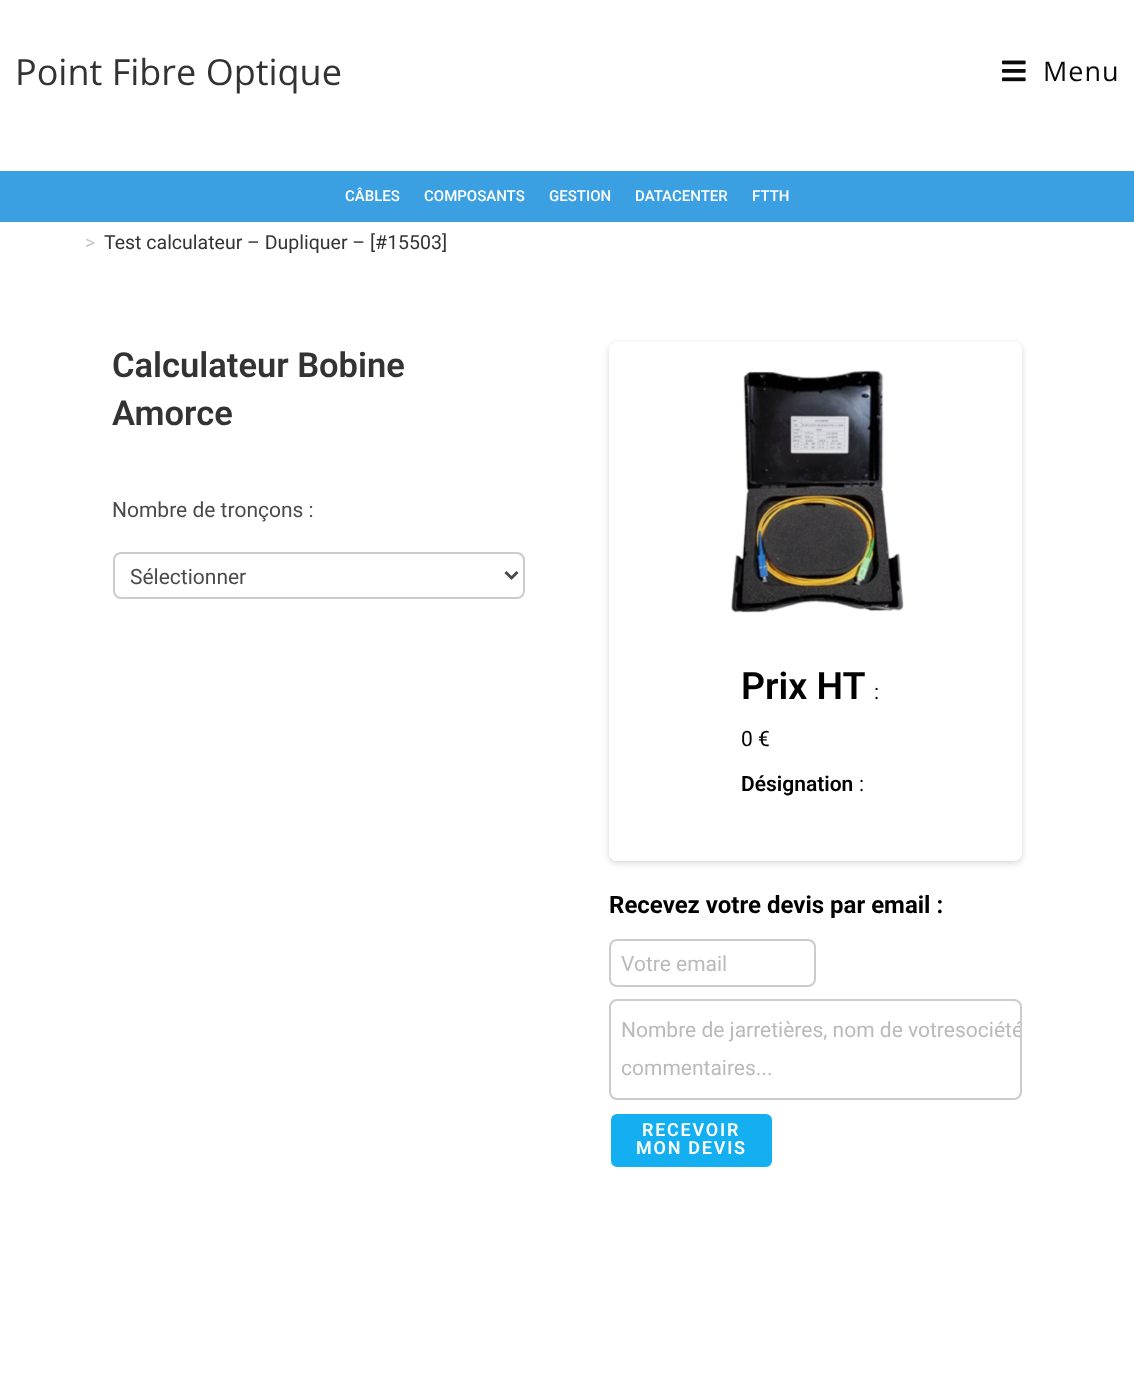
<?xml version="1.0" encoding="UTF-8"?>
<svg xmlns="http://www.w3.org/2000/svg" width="1134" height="1383">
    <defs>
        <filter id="blur1" x="-50%" y="-200%" width="200%" height="500%"><feGaussianBlur stdDeviation="3"/></filter>
        <clipPath id="clip1"><rect x="611" y="1001" width="409" height="97" rx="6"/></clipPath>
    </defs>
    <rect width="100%" height="100%" fill="#FFFFFF"/>
    <text x="15" y="85" font-family="Open Sans" font-size="36" fill="#333333">Point Fibre Optique</text>
    <image x="1002" y="60" width="24" height="22" href="img_01.png"/>
    <text x="1043" y="81" font-family="Open Sans" font-size="27" letter-spacing="1" fill="#0A0A0A">Menu</text>
    <rect x="0" y="171" width="1134" height="51" fill="#3AA0E1"/>
    <text x="345" y="201" font-family="Roboto" font-size="15" font-weight="500" fill="#FFFFFF">CÂBLES</text>
    <text x="424" y="201" font-family="Roboto" font-size="15" font-weight="500" fill="#FFFFFF">COMPOSANTS</text>
    <text x="549" y="201" font-family="Roboto" font-size="15" font-weight="500" fill="#FFFFFF">GESTION</text>
    <text x="635" y="201" font-family="Roboto" font-size="15" font-weight="500" fill="#FFFFFF">DATACENTER</text>
    <text x="752" y="201" font-family="Roboto" font-size="15" font-weight="500" fill="#FFFFFF">FTTH</text>
    <text x="85" y="249" font-family="Roboto" font-size="19.5" fill="#C6C6C6">&gt;</text>
    <text x="104" y="249" font-family="Roboto" font-size="19.5" fill="#333333">Test calculateur – Dupliquer – [#15503]</text>
    <text font-family="Roboto" font-size="34.5" font-weight="600" fill="#333333">
        <tspan x="112" y="377">Calculateur Bobine</tspan>
        <tspan x="112" y="425">Amorce</tspan>
    </text>
    <text x="112" y="517" font-family="Roboto" font-size="21" fill="#4A4A4A">Nombre de tronçons :</text>
    <rect x="114" y="553" width="410" height="45" rx="7" fill="none" stroke="#CCCCCC" stroke-width="2"/>
    <path d="M 505.5 572 L 511.5 578 L 517.5 572" fill="none" stroke="#4A4A4A" stroke-width="3"/>
    <text x="130" y="584" font-family="Roboto" font-size="21" fill="#4A4A4A">Sélectionner</text>
    <rect x="609" y="344" width="413" height="519" rx="8" fill="#000000" fill-opacity="0.16" filter="url(#blur1)"/>
    <rect x="609" y="342" width="413" height="519" rx="8" fill="#FFFFFF"/>
    <image x="731" y="370" width="173" height="243" href="img_02.png"/>
    <text x="741" y="699" font-family="Roboto" font-size="37.5" font-weight="600" fill="#000000">Prix HT</text>
    <text x="874" y="699" font-family="Roboto" font-size="21" fill="#000000">:</text>
    <text x="741" y="746" font-family="Roboto" font-size="21" fill="#000000">0 €</text>
    <text x="741" y="791" font-family="Roboto" font-size="21" font-weight="600" fill="#000000">Désignation</text>
    <text x="859" y="791" font-family="Roboto" font-size="21" fill="#000000">:</text>
    <text x="609" y="913" font-family="Roboto" font-size="24" font-weight="700" fill="#000000">Recevez votre devis par email :</text>
    <rect x="610" y="940" width="205" height="46" rx="7" fill="none" stroke="#CCCCCC" stroke-width="2"/>
    <text x="621" y="971" font-family="Roboto" font-size="21" fill="#BABABA">Votre email</text>
    <rect x="610" y="1000" width="411" height="99" rx="7" fill="none" stroke="#CCCCCC" stroke-width="2"/>
    <text x="621" y="1037" font-family="Roboto" font-size="21" fill="#BABABA">Nombre de jarretières, nom de votre</text>
    <g clip-path="url(#clip1)">
        <text x="955" y="1037" font-family="Roboto" font-size="21" fill="#BABABA">société</text>
    </g>
    <text x="621" y="1075" font-family="Roboto" font-size="21" fill="#BABABA">commentaires...</text>
    <rect x="610" y="1113" width="163" height="55" rx="7" fill="#13AFF0" stroke="#FFFFFF" stroke-width="2"/>
    <text x="642" y="1136" font-family="Roboto" font-size="18" font-weight="600" letter-spacing="1.75" fill="#FFFFFF">RECEVOIR</text>
    <text x="636" y="1154" font-family="Roboto" font-size="18" font-weight="600" letter-spacing="1.75" fill="#FFFFFF">MON DEVIS</text>
</svg>
